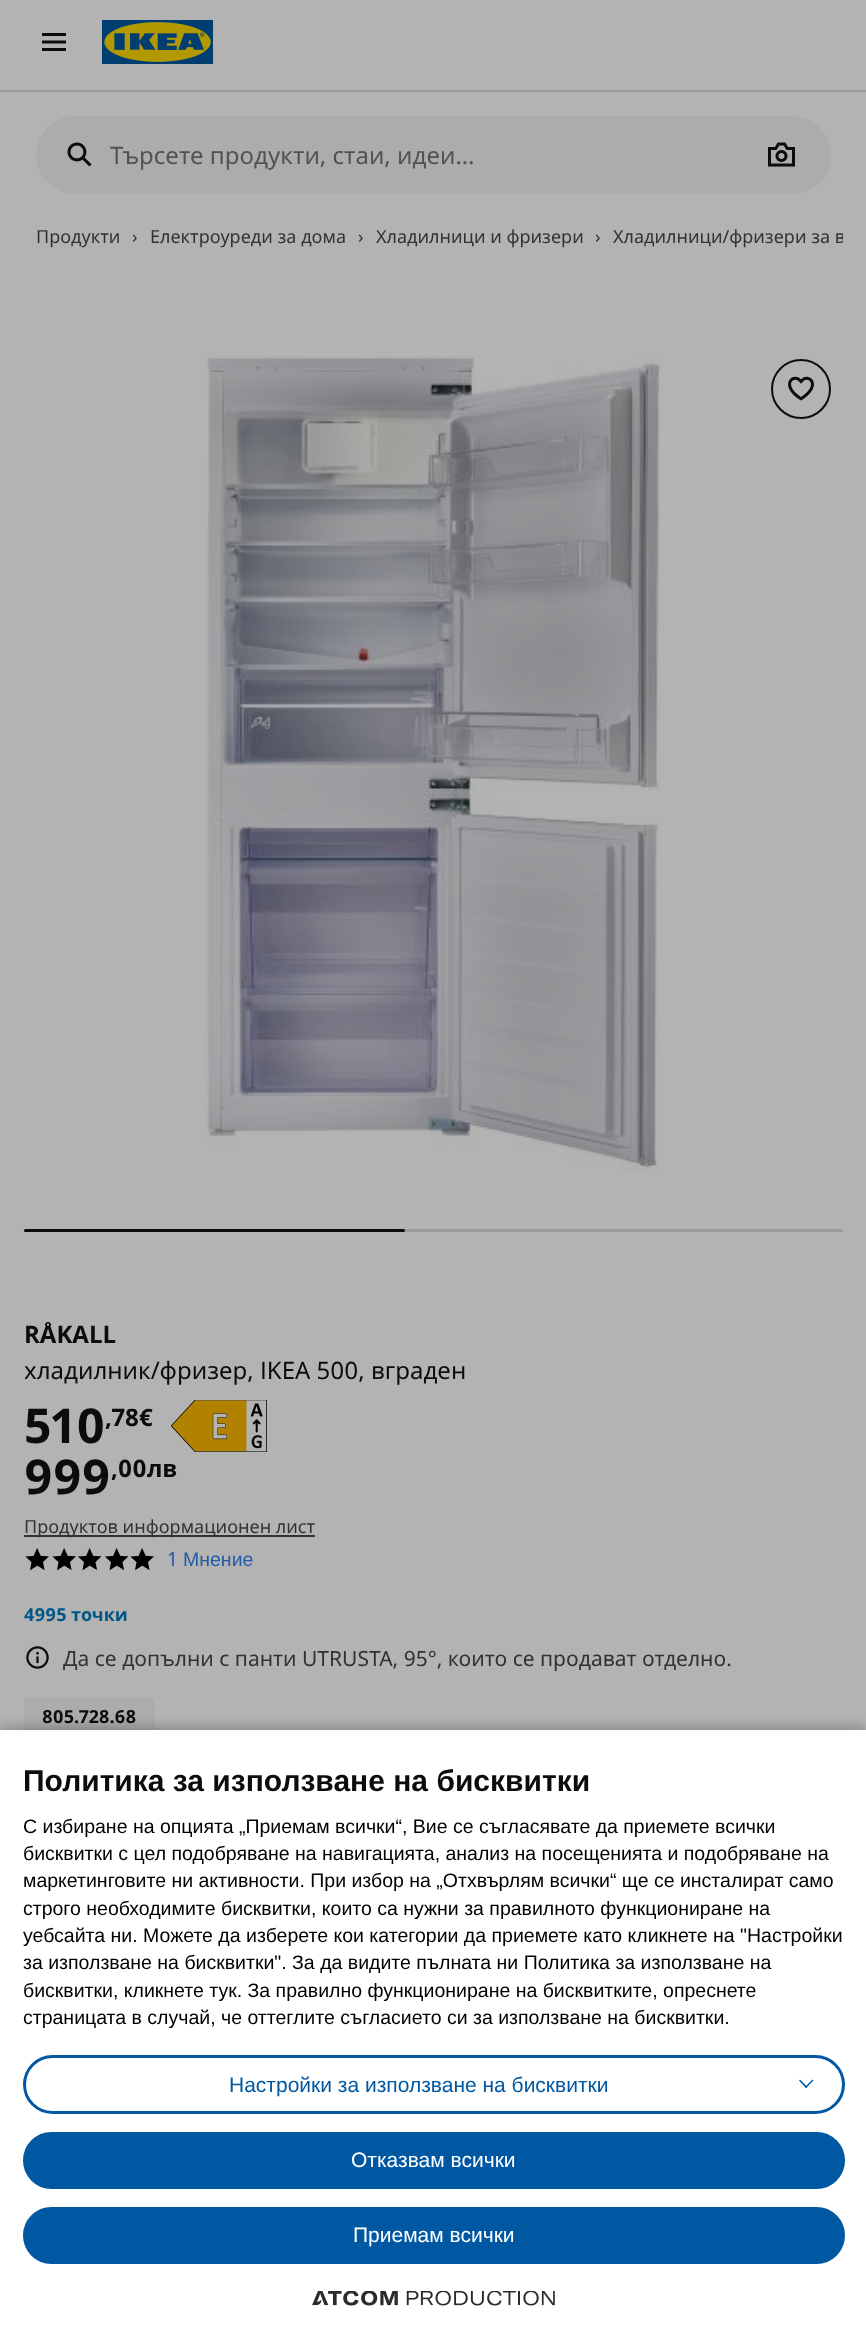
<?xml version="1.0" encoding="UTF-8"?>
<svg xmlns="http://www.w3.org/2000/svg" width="866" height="2341">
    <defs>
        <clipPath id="clip1"><rect x="24" y="200" width="819" height="75"/></clipPath>
        <filter id="blur1" x="-50%" y="-200%" width="200%" height="500%"><feGaussianBlur stdDeviation="7.5"/></filter>
    </defs>
    <rect width="100%" height="100%" fill="#B3B3B3"/>
    <image x="42" y="33" width="24" height="18" href="img_01.png"/>
    <image x="102" y="20" width="111" height="44" href="img_02.png"/>
    <rect x="0" y="90" width="866" height="2" fill="#9C9C9C"/>
    <rect x="36" y="116" width="795" height="78" rx="39" fill="#ACACAC"/>
    <image x="67" y="142" width="25" height="25" href="img_03.png"/>
    <text x="110" y="164" font-family="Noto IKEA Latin" font-size="24" fill="#525252">Търсете продукти, стаи, идеи…</text>
    <image x="768" y="142" width="27" height="25" href="img_04.png"/>
    <text x="36" y="243" font-family="Noto IKEA Latin" font-size="18" fill="#323232">Продукти</text>
    <text x="132" y="243" font-family="Noto IKEA Latin" font-size="18" fill="#323232">›</text>
    <text x="150" y="243" font-family="Noto IKEA Latin" font-size="18" fill="#323232">Електроуреди за дома</text>
    <text x="358" y="243" font-family="Noto IKEA Latin" font-size="18" fill="#323232">›</text>
    <text x="376" y="243" font-family="Noto IKEA Latin" font-size="18" fill="#323232">Хладилници и фризери</text>
    <text x="595" y="243" font-family="Noto IKEA Latin" font-size="18" fill="#323232">›</text>
    <g clip-path="url(#clip1)">
        <text x="613" y="243" font-family="Noto IKEA Latin" font-size="18" fill="#323232">Хладилници/фризери за в</text>
    </g>
    <image x="206" y="356" width="455" height="817" href="img_05.png"/>
    <rect x="24" y="1229" width="819" height="3" rx="1.5" fill="#9C9C9C"/>
    <rect x="24" y="1229" width="381" height="3" rx="1.5" fill="#0C0C0C"/>
    <circle cx="801" cy="389" r="29" fill="none" stroke="#0C0C0C" stroke-width="2"/>
    <image x="788" y="376" width="26" height="25" href="img_06.png"/>
    <text x="24" y="1343" font-family="Noto IKEA Latin" font-size="24" font-weight="700" fill="#0C0C0C">RÅKALL</text>
    <text x="24" y="1379" font-family="Noto IKEA Latin" font-size="24" fill="#0C0C0C">хладилник/фризер, IKEA 500, вграден</text>
    <text x="24" y="1443" font-family="Noto IKEA Latin" font-size="48" font-weight="700" fill="#0C0C0C">510</text>
    <text x="105" y="1426" font-family="Noto IKEA Latin" font-size="24" font-weight="700" fill="#0C0C0C">,78€</text>
    <image x="171" y="1400" width="96" height="52" href="img_07.png"/>
    <text x="24" y="1494" font-family="Noto IKEA Latin" font-size="48" font-weight="700" fill="#0C0C0C">999</text>
    <text x="111" y="1477" font-family="Noto IKEA Latin" font-size="24" font-weight="700" fill="#0C0C0C">,00лв</text>
    <rect x="24" y="1535" width="291" height="2" fill="#323232"/>
    <text x="24" y="1533" font-family="Noto IKEA Latin" font-size="18" fill="#323232">Продуктов информационен лист</text>
    <image x="25" y="1548" width="24" height="23" href="img_08.png"/>
    <image x="52" y="1548" width="24" height="23" href="img_08.png"/>
    <image x="78" y="1548" width="24" height="23" href="img_09.png"/>
    <image x="105" y="1548" width="24" height="23" href="img_09.png"/>
    <image x="130" y="1548" width="24" height="23" href="img_08.png"/>
    <text x="167" y="1566" font-family="Noto Sans" font-size="19.5" fill="#215CA6">1</text>
    <text x="183" y="1566" font-family="Liberation Sans" font-size="19.5" fill="#215CA6">Мнение</text>
    <text x="24" y="1621" font-family="Noto IKEA Latin" font-size="18" font-weight="700" fill="#005787">4995 точки</text>
    <image x="26" y="1646" width="23" height="23" href="img_10.png"/>
    <text x="63" y="1666" font-family="Noto IKEA Latin" font-size="21" fill="#323232">Да се допълни с панти UTRUSTA, 95°, които се продават отделно.</text>
    <rect x="24" y="1698" width="131" height="32" fill="#ACACAC"/>
    <text x="42" y="1723" font-family="Noto IKEA Latin" font-size="18" font-weight="700" fill="#0C0C0C">805.728.68</text>
    <rect x="0" y="1730" width="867" height="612" fill="#000000" fill-opacity="0.37" filter="url(#blur1)"/>
    <rect x="0" y="1730" width="866" height="611" fill="#FFFFFF"/>
    <text x="23" y="1791" font-family="Liberation Sans" font-size="30" font-weight="700" fill="#0C0C0C">Политика за използване на бисквитки</text>
    <text font-family="Liberation Sans" font-size="19.5" fill="#000000">
        <tspan x="23" y="1833">С избиране на опцията „Приемам всички“, Вие се съгласявате да приемете всички</tspan>
        <tspan x="23" y="1860">бисквитки с цел подобряване на навигацията, анализ на посещенията и подобряване на</tspan>
        <tspan x="23" y="1887">маркетинговите ни активности. При избор на „Отхвърлям всички“ ще се инсталират само</tspan>
        <tspan x="23" y="1915">строго необходимитe бисквитки, които са нужни за правилното функциониране на</tspan>
        <tspan x="23" y="1942">уебсайта ни. Можете да изберете кои категории да приемете като кликнете на "Настройки</tspan>
        <tspan x="23" y="1969">за използване на бисквитки". За да видите пълната ни Политика за използване на</tspan>
        <tspan x="23" y="1997">бисквитки, кликнете тук. За правилно функциониране на бисквитките, опреснете</tspan>
        <tspan x="23" y="2024">страницата в случай, че оттеглите съгласието си за използване на бисквитки.</tspan>
    </text>
    <rect x="24.5" y="2056.5" width="819" height="56" rx="28" fill="none" stroke="#0058A3" stroke-width="3"/>
    <text x="229" y="2092" font-family="Liberation Sans" font-size="21" fill="#0058A3">Настройки за използване на бисквитки</text>
    <path d="M 812.5 2079.5 L 813.5 2080.5 L 806 2088 L 805 2087 Z" fill="#0058A3"/>
    <path d="M 800 2079.5 L 807.5 2087 L 806 2088 L 799 2080.5 Z" fill="#0058A3"/>
    <rect x="24.5" y="2133.5" width="819" height="54" rx="27" fill="#0058A3" stroke="#0058A3" stroke-width="3"/>
    <text x="351" y="2167" font-family="Liberation Sans" font-size="21" fill="#FFFFFF">Отказвам всички</text>
    <rect x="24.5" y="2208.5" width="819" height="54" rx="27" fill="#0058A3" stroke="#0058A3" stroke-width="3"/>
    <text x="353" y="2242" font-family="Liberation Sans" font-size="21" fill="#FFFFFF">Приемам всички</text>
    <image x="312" y="2291" width="243" height="15" href="img_11.png"/>
</svg>
